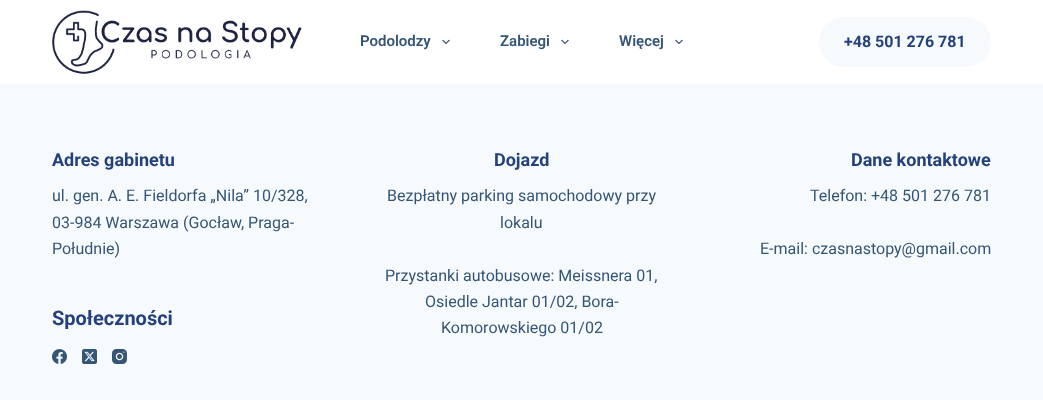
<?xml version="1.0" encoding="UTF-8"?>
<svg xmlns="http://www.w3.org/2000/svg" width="1043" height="400">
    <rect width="100%" height="100%" fill="#F7FAFD"/>
    <rect x="0" y="0" width="1043" height="84" fill="#FFFFFF"/>
    <image x="52" y="10" width="250" height="64" href="img_01.png"/>
    <text x="360" y="46" font-family="Roboto" font-size="15" font-weight="600" fill="#355575">Podolodzy</text>
    <image x="442" y="39" width="8" height="6" href="img_02.png"/>
    <text x="500" y="46" font-family="Roboto" font-size="15" font-weight="600" fill="#355575">Zabiegi</text>
    <image x="561" y="39" width="8" height="6" href="img_02.png"/>
    <text x="619" y="46" font-family="Roboto" font-size="15" font-weight="600" fill="#355575">Więcej</text>
    <image x="675" y="39" width="8" height="6" href="img_02.png"/>
    <rect x="819" y="17" width="172" height="50" rx="25" fill="#F7FAFD"/>
    <text x="844" y="47" font-family="Roboto" font-size="16" font-weight="700" fill="#24417C">+48 501 276 781</text>
    <text x="52" y="166" font-family="Roboto" font-size="18" font-weight="700" fill="#24417C">Adres gabinetu</text>
    <text font-family="Roboto" font-size="16" fill="#355575">
        <tspan x="52" y="201">ul. gen. A. E. Fieldorfa „Nila” 10/328,</tspan>
        <tspan x="52" y="228">03-984 Warszawa (Gocław, Praga-</tspan>
        <tspan x="52" y="254">Południe)</tspan>
    </text>
    <text x="52" y="325" font-family="Roboto" font-size="20" font-weight="700" fill="#24417C">Społeczności</text>
    <image x="52" y="349" width="15" height="15" href="img_03.png"/>
    <image x="82" y="349" width="15" height="15" href="img_04.png"/>
    <image x="112" y="349" width="15" height="15" href="img_05.png"/>
    <text x="494" y="166" font-family="Roboto" font-size="18" font-weight="700" fill="#24417C">Dojazd</text>
    <text x="387" y="201" font-family="Roboto" font-size="16" fill="#355575">Bezpłatny parking samochodowy przy</text>
    <text x="500" y="228" font-family="Roboto" font-size="16" fill="#355575">lokalu</text>
    <text x="385" y="281" font-family="Roboto" font-size="16" fill="#355575">Przystanki autobusowe: Meissnera 01,</text>
    <text x="425" y="307" font-family="Roboto" font-size="16" fill="#355575">Osiedle Jantar 01/02, Bora-</text>
    <text x="441" y="333" font-family="Roboto" font-size="16" fill="#355575">Komorowskiego 01/02</text>
    <text x="851" y="166" font-family="Roboto" font-size="18" font-weight="700" fill="#24417C">Dane kontaktowe</text>
    <text x="810" y="201" font-family="Roboto" font-size="16" fill="#355575">Telefon: +48 501 276 781</text>
    <text x="760" y="254" font-family="Roboto" font-size="16" fill="#355575">E-mail: czasnastopy@gmail.com</text>
</svg>
